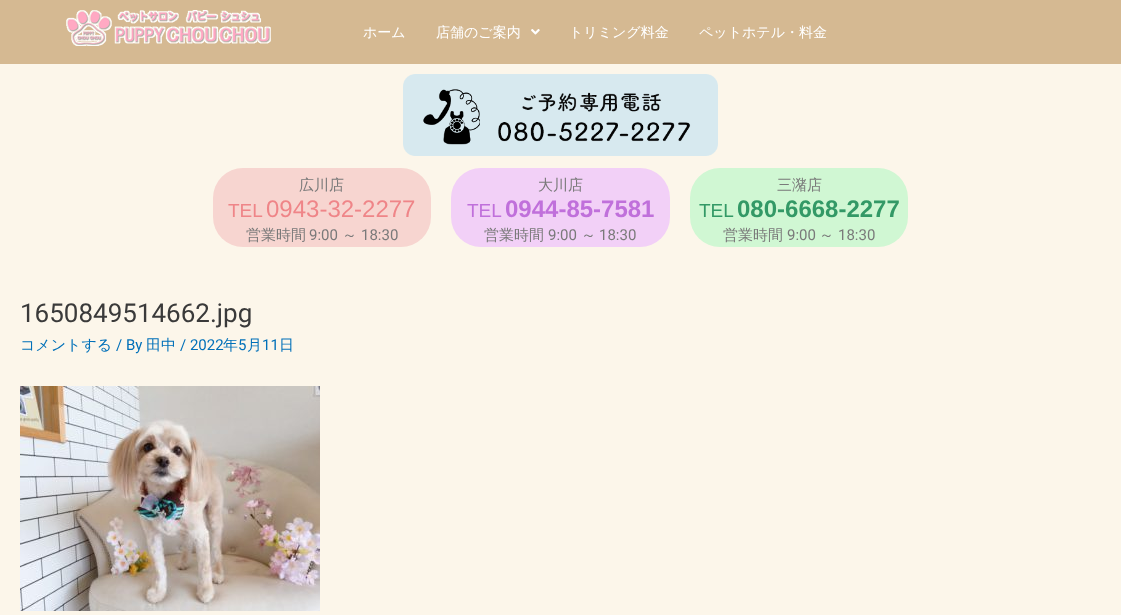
<?xml version="1.0" encoding="UTF-8"?>
<svg xmlns="http://www.w3.org/2000/svg" width="1121" height="615">
    <rect width="100%" height="100%" fill="#FCF6EA"/>
    <rect x="0" y="0" width="1121" height="64" fill="#D5B992"/>
    <image x="66" y="10" width="205" height="36" href="img_01.png"/>
    <text x="363" y="37" font-family="WenQuanYi Zen Hei" font-size="14" font-weight="500" fill="#FFFFFF">ホーム</text>
    <text x="436" y="37" font-family="WenQuanYi Zen Hei" font-size="14" font-weight="500" fill="#FFFFFF">店舗のご案内</text>
    <image x="531" y="29" width="9" height="6" href="img_02.png"/>
    <text x="569" y="37" font-family="WenQuanYi Zen Hei" font-size="14" font-weight="500" fill="#FFFFFF">トリミング料金</text>
    <text x="699" y="37" font-family="WenQuanYi Zen Hei" font-size="14" font-weight="500" fill="#FFFFFF">ペットホテル・料金</text>
    <image x="403" y="74" width="315" height="82" href="img_03.png"/>
    <rect x="213" y="168" width="218" height="79" rx="30" fill="#F7D5D0"/>
    <text x="299" y="190" font-family="WenQuanYi Zen Hei" font-size="15" font-weight="500" fill="#7A7A7A">広川店</text>
    <text x="228" y="217" font-family="Liberation Sans" font-size="19" fill="#EF8588">TEL</text>
    <text x="266" y="217" font-family="Liberation Sans" font-size="24" fill="#EF8588">0943-32-2277</text>
    <text x="246" y="240" font-family="WenQuanYi Zen Hei" font-size="15" font-weight="500" fill="#7A7A7A">営業時間</text>
    <text x="309" y="240" font-family="Roboto" font-size="15" fill="#7A7A7A">9:00</text>
    <text x="342" y="240" font-family="WenQuanYi Zen Hei" font-size="15" font-weight="500" fill="#7A7A7A">～</text>
    <text x="361" y="240" font-family="Roboto" font-size="15" fill="#7A7A7A">18:30</text>
    <rect x="451" y="168" width="219" height="79" rx="30" fill="#F2D0F7"/>
    <text x="538" y="190" font-family="WenQuanYi Zen Hei" font-size="15" font-weight="500" fill="#7A7A7A">大川店</text>
    <text x="467" y="217" font-family="Liberation Sans" font-size="19" fill="#C070DB">TEL</text>
    <text x="505" y="217" font-family="Liberation Sans" font-size="24" font-weight="700" fill="#C070DB">0944-85-7581</text>
    <text x="484" y="240" font-family="WenQuanYi Zen Hei" font-size="15" font-weight="500" fill="#7A7A7A">営業時間</text>
    <text x="548" y="240" font-family="Roboto" font-size="15" fill="#7A7A7A">9:00</text>
    <text x="581" y="240" font-family="WenQuanYi Zen Hei" font-size="15" font-weight="500" fill="#7A7A7A">～</text>
    <text x="599" y="240" font-family="Roboto" font-size="15" fill="#7A7A7A">18:30</text>
    <rect x="690" y="168" width="218" height="79" rx="30" fill="#D0F7D3"/>
    <text x="777" y="190" font-family="WenQuanYi Zen Hei" font-size="15" font-weight="500" fill="#7A7A7A">三潴店</text>
    <text x="699" y="217" font-family="Liberation Sans" font-size="19" fill="#339966">TEL</text>
    <text x="737" y="217" font-family="Liberation Sans" font-size="24" font-weight="700" fill="#339966">080-6668-2277</text>
    <text x="723" y="240" font-family="WenQuanYi Zen Hei" font-size="15" font-weight="500" fill="#7A7A7A">営業時間</text>
    <text x="787" y="240" font-family="Roboto" font-size="15" fill="#7A7A7A">9:00</text>
    <text x="819" y="240" font-family="WenQuanYi Zen Hei" font-size="15" font-weight="500" fill="#7A7A7A">～</text>
    <text x="838" y="240" font-family="Roboto" font-size="15" fill="#7A7A7A">18:30</text>
    <text x="20" y="322" font-family="Roboto" font-size="26" fill="#3A3A3A">1650849514662.jpg</text>
    <text x="20" y="350" font-family="WenQuanYi Zen Hei" font-size="15" font-weight="500" fill="#0170B9">コメントする</text>
    <text x="116" y="350" font-family="Roboto" font-size="15" fill="#0170B9">/ By</text>
    <text x="146" y="350" font-family="WenQuanYi Zen Hei" font-size="15" font-weight="500" fill="#0170B9">田中</text>
    <text x="180" y="350" font-family="Roboto" font-size="15" fill="#0170B9">/ 2022</text>
    <text x="223" y="350" font-family="WenQuanYi Zen Hei" font-size="15" font-weight="500" fill="#0170B9">年</text>
    <text x="238" y="350" font-family="Roboto" font-size="15" fill="#0170B9">5</text>
    <text x="247" y="350" font-family="WenQuanYi Zen Hei" font-size="15" font-weight="500" fill="#0170B9">月</text>
    <text x="262" y="350" font-family="Roboto" font-size="15" fill="#0170B9">11</text>
    <text x="279" y="350" font-family="WenQuanYi Zen Hei" font-size="15" font-weight="500" fill="#0170B9">日</text>
    <image x="20" y="386" width="300" height="225" href="img_04.png"/>
</svg>
